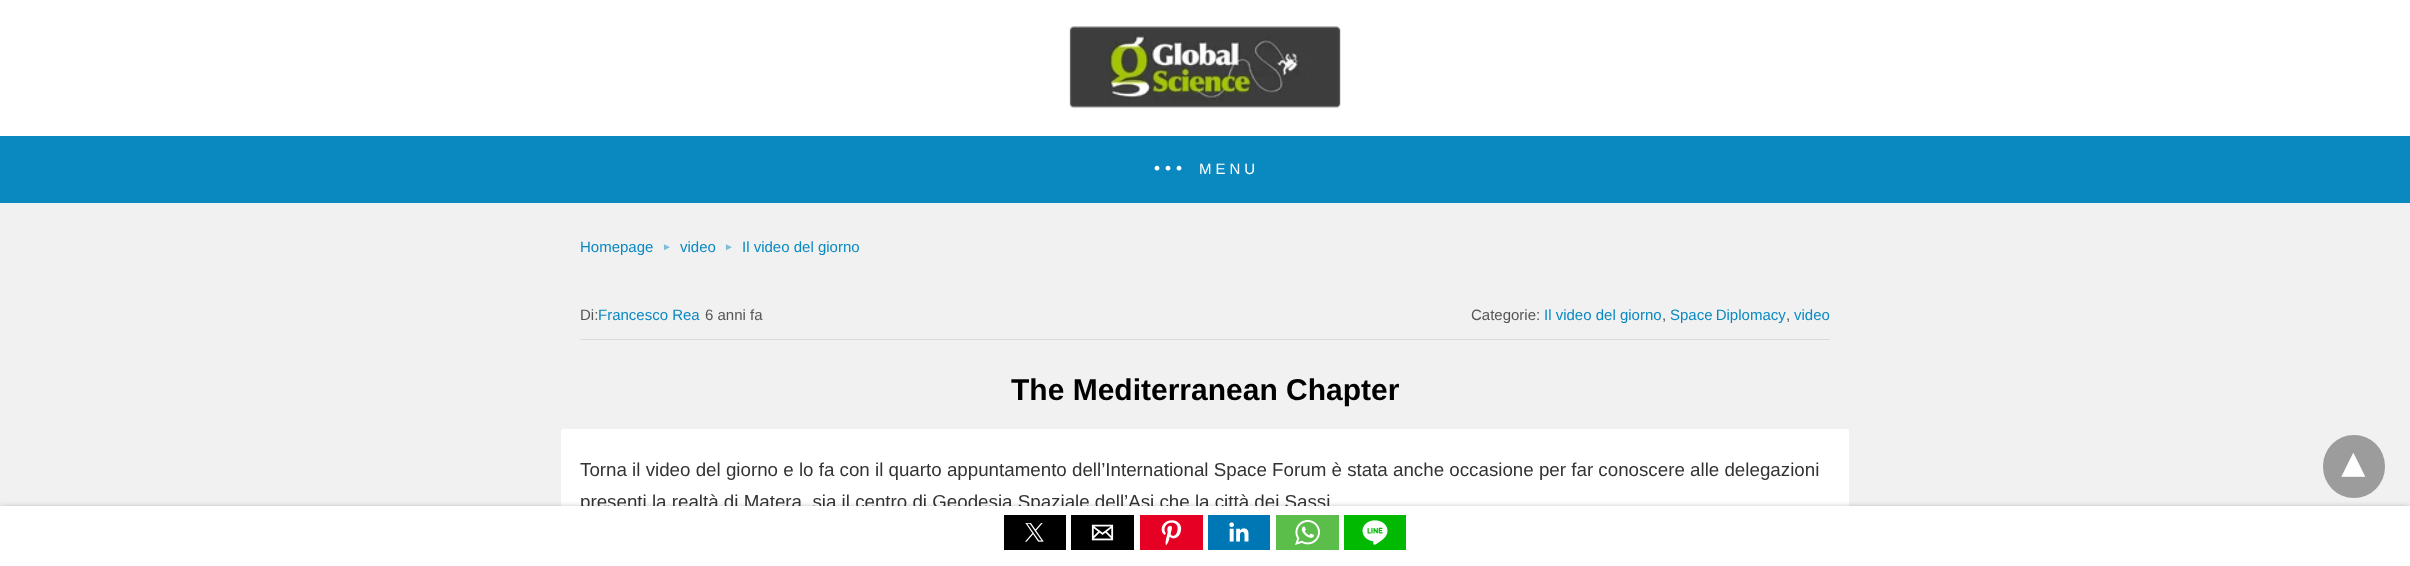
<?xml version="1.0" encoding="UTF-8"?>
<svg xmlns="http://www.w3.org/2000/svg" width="2410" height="566">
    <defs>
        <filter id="blur1" x="-50%" y="-200%" width="200%" height="500%"><feGaussianBlur stdDeviation="4.5"/></filter>
    </defs>
    <rect width="100%" height="100%" fill="#F1F1F1"/>
    <rect x="0" y="0" width="2410" height="136" fill="#FFFFFF"/>
    <image x="1069" y="26" width="272" height="82" href="img_01.png"/>
    <rect x="0" y="136" width="2410" height="67" fill="#0A89C0"/>
    <text x="1152" y="170" font-family="Liberation Serif" font-size="40" letter-spacing="1" fill="#FFFFFF">...</text>
    <text x="1199" y="174" font-family="Liberation Sans" font-size="15" letter-spacing="4" fill="#FFFFFF">MENU</text>
    <text x="580" y="252" font-family="Liberation Sans" font-size="15" fill="#0A89C0">Homepage</text>
    <text x="662" y="250" font-family="Liberation Sans" font-size="10" fill="#7EBDD9">►</text>
    <text x="680" y="252" font-family="Liberation Sans" font-size="15" fill="#0A89C0">video</text>
    <text x="724" y="250" font-family="Liberation Sans" font-size="10" fill="#7EBDD9">►</text>
    <text x="742" y="252" font-family="Liberation Sans" font-size="15" fill="#0A89C0">Il video del giorno</text>
    <rect x="580" y="339" width="1250" height="1" fill="#DADADA"/>
    <text x="580" y="320" font-family="Liberation Sans" font-size="15" fill="#555555">Di:</text>
    <text x="598" y="320" font-family="Liberation Sans" font-size="15" fill="#0A89C0">Francesco Rea</text>
    <text x="705" y="320" font-family="Liberation Sans" font-size="15" fill="#555555">6 anni fa</text>
    <text x="1471" y="320" font-family="Liberation Sans" font-size="15" fill="#555555">Categorie:</text>
    <text x="1544" y="320" font-family="Liberation Sans" font-size="15" fill="#0A89C0">Il video del giorno</text>
    <text x="1662" y="320" font-family="Liberation Sans" font-size="15" fill="#555555">,</text>
    <text x="1670" y="320" word-spacing="-1" font-family="Liberation Sans" font-size="15" fill="#0A89C0">Space Diplomacy</text>
    <text x="1786" y="320" font-family="Liberation Sans" font-size="15" fill="#555555">,</text>
    <text x="1794" y="320" font-family="Liberation Sans" font-size="15" fill="#0A89C0">video</text>
    <text x="1011" y="400" font-family="Liberation Sans" font-size="30" font-weight="700" fill="#000000">The Mediterranean Chapter</text>
    <rect x="561" y="429" width="1288" height="127" rx="2.5" fill="#FFFFFF"/>
    <text font-family="Liberation Sans" font-size="18.75" fill="#333333">
        <tspan x="580" y="476">Torna il video del giorno e lo fa con il quarto appuntamento dell’International Space Forum è stata anche occasione per far conoscere alle delegazioni</tspan>
        <tspan x="580" y="508">presenti la realtà di Matera, sia il centro di Geodesia Spaziale dell’Asi che la città dei Sassi</tspan>
    </text>
    <rect x="2323" y="435" width="62" height="63" rx="31" fill="#9C9C9C"/>
    <text x="2365" y="453" transform="rotate(180 2365 453)" font-family="DejaVu Sans" font-size="44" font-weight="700" fill="#FFFFFF">▾</text>
    <rect x="0" y="511" width="2410" height="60" fill="#000000" filter="url(#blur1)"/>
    <rect x="0" y="506" width="2410" height="60" fill="#FFFFFF"/>
    <rect x="1004" y="515" width="62" height="35" fill="#000000"/>
    <image x="1025" y="523" width="19" height="19" href="img_02.png"/>
    <rect x="1071" y="515" width="63" height="35" fill="#000000"/>
    <image x="1091" y="524" width="23" height="17" href="img_03.png"/>
    <rect x="1140" y="515" width="63" height="35" fill="#E60023"/>
    <image x="1161" y="520" width="21" height="26" href="img_04.png"/>
    <rect x="1208" y="515" width="62" height="35" fill="#0077B5"/>
    <image x="1229" y="522" width="20" height="20" href="img_05.png"/>
    <rect x="1276" y="515" width="63" height="35" fill="#5CBE4A"/>
    <image x="1295" y="520" width="25" height="25" href="img_06.png"/>
    <rect x="1344" y="515" width="62" height="35" fill="#00B900"/>
    <image x="1362" y="520" width="26" height="25" href="img_07.png"/>
</svg>
